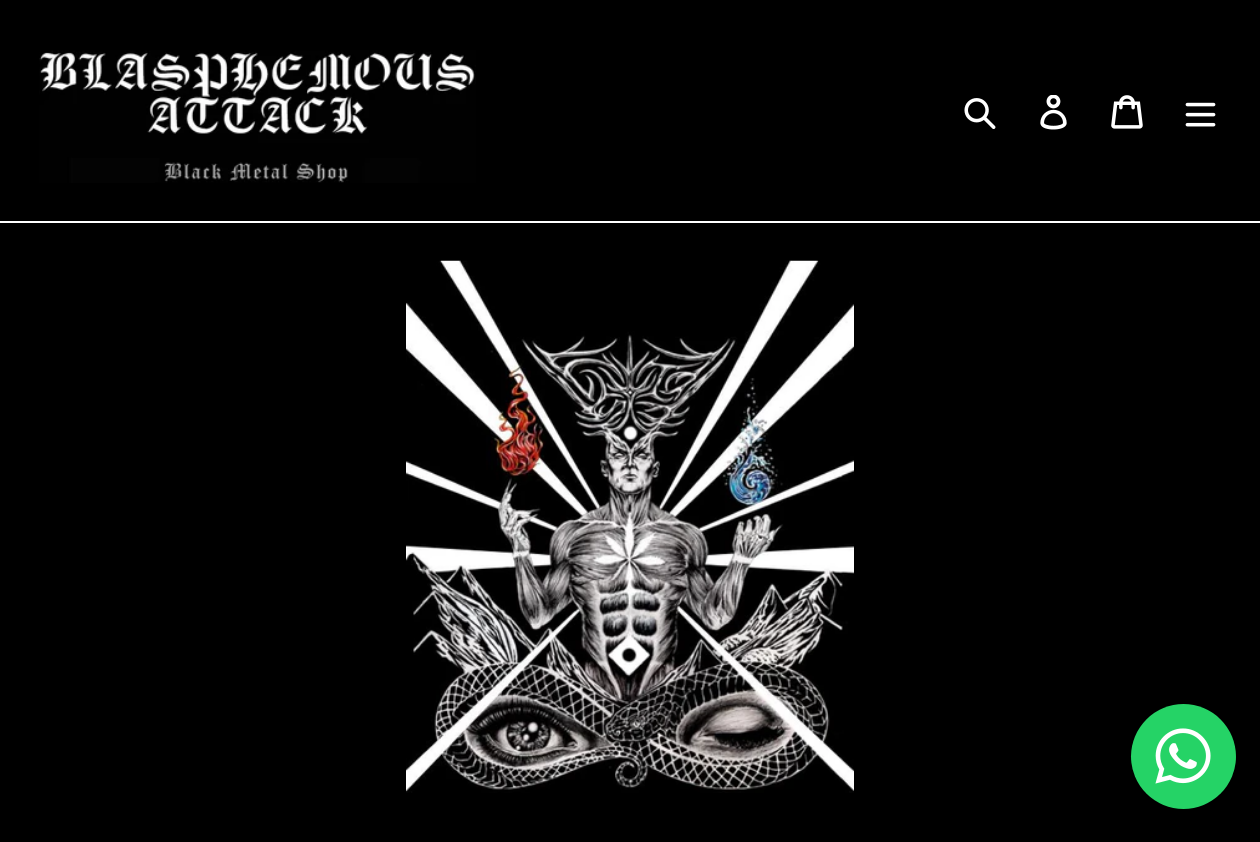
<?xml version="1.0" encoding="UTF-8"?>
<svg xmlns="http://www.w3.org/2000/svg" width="1260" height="842">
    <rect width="100%" height="100%" fill="#000000"/>
    <rect x="0" y="221" width="1260" height="2" fill="#FFFFFF"/>
    <image x="39" y="50" width="437" height="133" href="img_01.png"/>
    <image x="964" y="98" width="32" height="31" href="img_02.png"/>
    <image x="1040" y="95" width="27" height="35" href="img_03.png"/>
    <image x="1111" y="95" width="32" height="34" href="img_04.png"/>
    <image x="1185" y="102" width="31" height="25" href="img_05.png"/>
    <image x="406" y="260" width="448" height="533" href="img_06.png"/>
    <circle cx="1183.5" cy="756.5" r="52.5" fill="#25D366"/>
    <image x="1155" y="728" width="56" height="56" href="img_07.png"/>
</svg>
